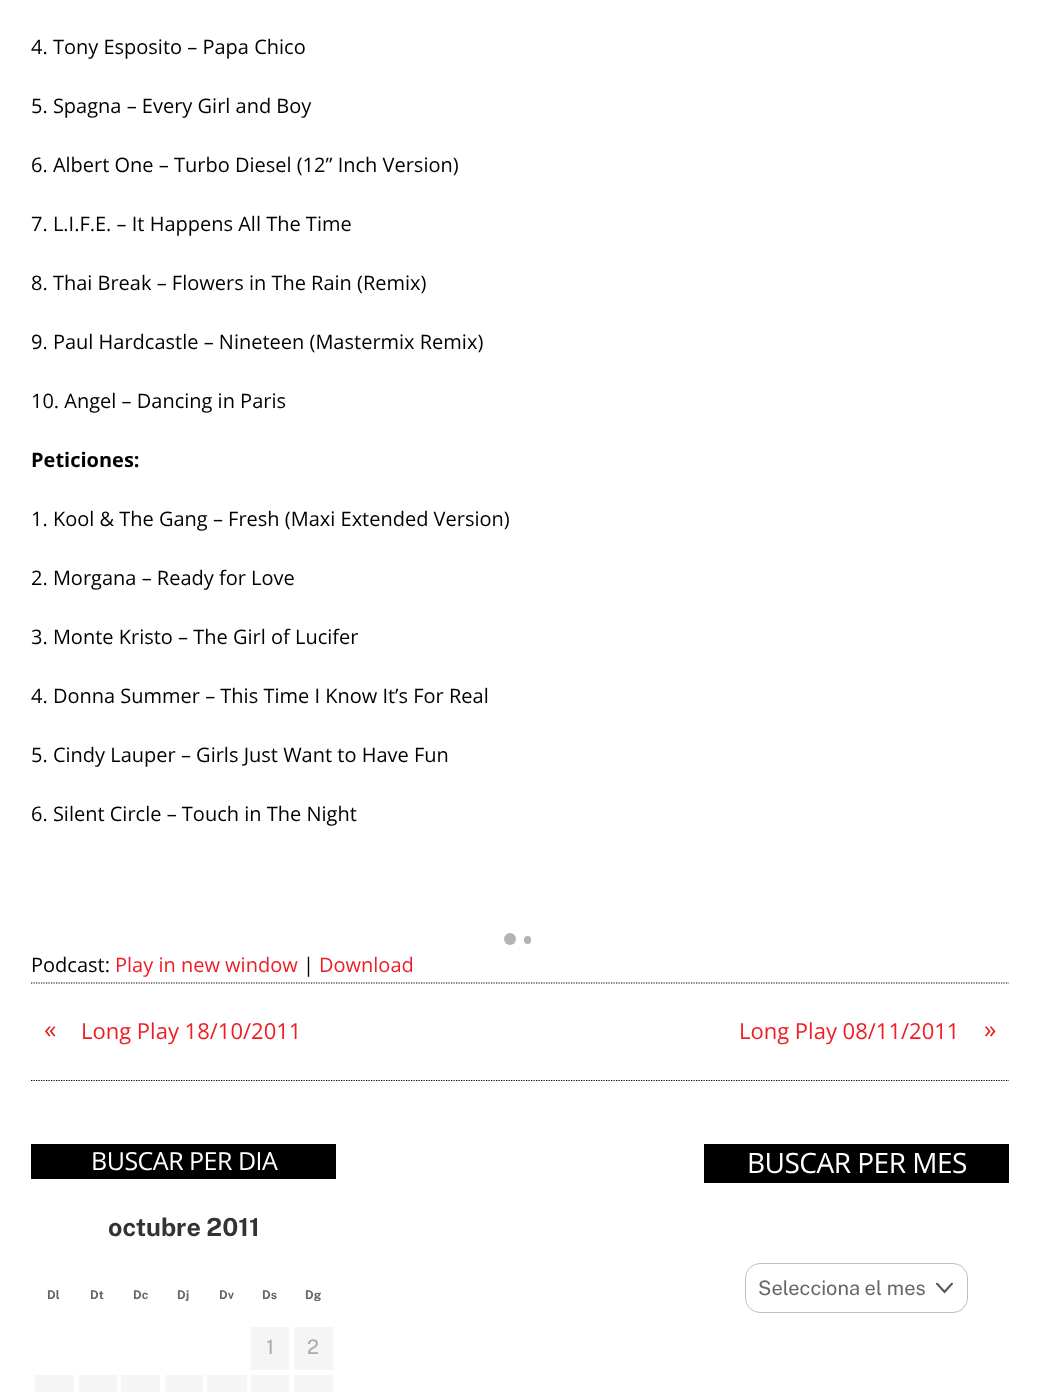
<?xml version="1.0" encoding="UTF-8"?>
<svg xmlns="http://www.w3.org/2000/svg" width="1039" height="1392">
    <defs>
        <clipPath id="clip1"><rect x="936" y="1283" width="17" height="16"/></clipPath>
    </defs>
    <rect width="100%" height="100%" fill="#FFFFFF"/>
    <text x="31" y="54" font-family="Open Sans" font-size="20" fill="#000000">4. Tony Esposito – Papa Chico</text>
    <text x="31" y="113" font-family="Open Sans" font-size="20" fill="#000000">5. Spagna – Every Girl and Boy</text>
    <text x="31" y="172" font-family="Open Sans" font-size="20" fill="#000000">6. Albert One – Turbo Diesel (12” Inch Version)</text>
    <text x="31" y="231" font-family="Open Sans" font-size="20" fill="#000000">7. L.I.F.E. – It Happens All The Time</text>
    <text x="31" y="290" font-family="Open Sans" font-size="20" fill="#000000">8. Thai Break – Flowers in The Rain (Remix)</text>
    <text x="31" y="349" font-family="Open Sans" font-size="20" fill="#000000">9. Paul Hardcastle – Nineteen (Mastermix Remix)</text>
    <text x="31" y="408" font-family="Open Sans" font-size="20" fill="#000000">10. Angel – Dancing in Paris</text>
    <text x="31" y="467" font-family="Open Sans" font-size="20" font-weight="700" fill="#000000">Peticiones:</text>
    <text x="31" y="526" font-family="Open Sans" font-size="20" fill="#000000">1. Kool &amp; The Gang – Fresh (Maxi Extended Version)</text>
    <text x="31" y="585" font-family="Open Sans" font-size="20" fill="#000000">2. Morgana – Ready for Love</text>
    <text x="31" y="644" font-family="Open Sans" font-size="20" fill="#000000">3. Monte Kristo – The Girl of Lucifer</text>
    <text x="31" y="703" font-family="Open Sans" font-size="20" fill="#000000">4. Donna Summer – This Time I Know It’s For Real</text>
    <text x="31" y="762" font-family="Open Sans" font-size="20" fill="#000000">5. Cindy Lauper – Girls Just Want to Have Fun</text>
    <text x="31" y="821" font-family="Open Sans" font-size="20" fill="#000000">6. Silent Circle – Touch in The Night</text>
    <circle cx="510" cy="939" r="6" fill="#B3B3B3"/>
    <rect x="524" y="936" width="7" height="8" rx="3.5" fill="#B3B3B3"/>
    <text x="31" y="972" font-family="Open Sans" font-size="20" fill="#000000">Podcast:</text>
    <text x="115" y="972" font-family="Open Sans" font-size="20" fill="#ED1E24">Play in new window</text>
    <text x="303" y="972" font-family="Open Sans" font-size="20" fill="#000000">|</text>
    <text x="319" y="972" font-family="Open Sans" font-size="20" fill="#ED1E24">Download</text>
    <path d="M 31 983 H 1009" fill="none" stroke="#000000" stroke-width="1.2" stroke-dasharray="1.25 1.25"/>
    <text x="44" y="1038" font-family="Open Sans" font-size="25" fill="#ED1E24">«</text>
    <text x="81" y="1039" font-family="Open Sans" font-size="22" fill="#ED1E24">Long Play 18/10/2011</text>
    <text x="739" y="1039" font-family="Open Sans" font-size="22" fill="#ED1E24">Long Play 08/11/2011</text>
    <text x="984" y="1038" font-family="Open Sans" font-size="25" fill="#ED1E24">»</text>
    <path d="M 31 1080.5 H 1009" fill="none" stroke="#000000" stroke-width="1.2" stroke-dasharray="1.25 1.25"/>
    <rect x="31" y="1144" width="305" height="35" fill="#000000"/>
    <text x="91" y="1170" font-family="Open Sans" font-size="25" letter-spacing="-0.5" fill="#FFFFFF">BUSCAR PER DIA</text>
    <text x="108" y="1236" font-family="Public Sans" font-size="25" font-weight="700" fill="#333333">octubre 2011</text>
    <text x="47" y="1299" font-family="Public Sans" font-size="12" font-weight="700" fill="#666666">Dl</text>
    <text x="90" y="1299" font-family="Public Sans" font-size="12" font-weight="700" fill="#666666">Dt</text>
    <text x="133" y="1299" font-family="Public Sans" font-size="12" font-weight="700" fill="#666666">Dc</text>
    <text x="177" y="1299" font-family="Public Sans" font-size="12" font-weight="700" fill="#666666">Dj</text>
    <text x="219" y="1299" font-family="Public Sans" font-size="12" font-weight="700" fill="#666666">Dv</text>
    <text x="262" y="1299" font-family="Public Sans" font-size="12" font-weight="700" fill="#666666">Ds</text>
    <text x="305" y="1299" font-family="Public Sans" font-size="12" font-weight="700" fill="#666666">Dg</text>
    <rect x="251" y="1327" width="38" height="43" fill="#F5F5F5"/>
    <text x="266" y="1354" font-family="Public Sans" font-size="20" fill="#AAAAAA">1</text>
    <rect x="294" y="1327" width="39" height="43" fill="#F5F5F5"/>
    <text x="307" y="1354" font-family="Public Sans" font-size="20" fill="#AAAAAA">2</text>
    <rect x="35" y="1375" width="39" height="17" fill="#F5F5F5"/>
    <rect x="79" y="1375" width="38" height="17" fill="#F5F5F5"/>
    <rect x="121" y="1375" width="39" height="17" fill="#F5F5F5"/>
    <rect x="165" y="1375" width="38" height="17" fill="#F5F5F5"/>
    <rect x="207" y="1375" width="40" height="17" fill="#F5F5F5"/>
    <rect x="251" y="1375" width="38" height="17" fill="#F5F5F5"/>
    <rect x="294" y="1375" width="39" height="17" fill="#F5F5F5"/>
    <rect x="704" y="1144" width="305" height="39" fill="#000000"/>
    <text x="747" y="1173" font-family="Open Sans" font-size="28" letter-spacing="-0.5" fill="#FFFFFF">BUSCAR PER MES</text>
    <g clip-path="url(#clip1)">
        <path d="M 936.5 1283 L 944.5 1292 L 952.5 1283" fill="none" stroke="#535353" stroke-width="2" stroke-linecap="round"/>
    </g>
    <rect x="745.5" y="1263.5" width="222" height="49" rx="14.5" fill="none" stroke="#BFBFBF"/>
    <text x="758" y="1295" font-family="Public Sans" font-size="20" fill="#666666">Selecciona el mes</text>
</svg>
